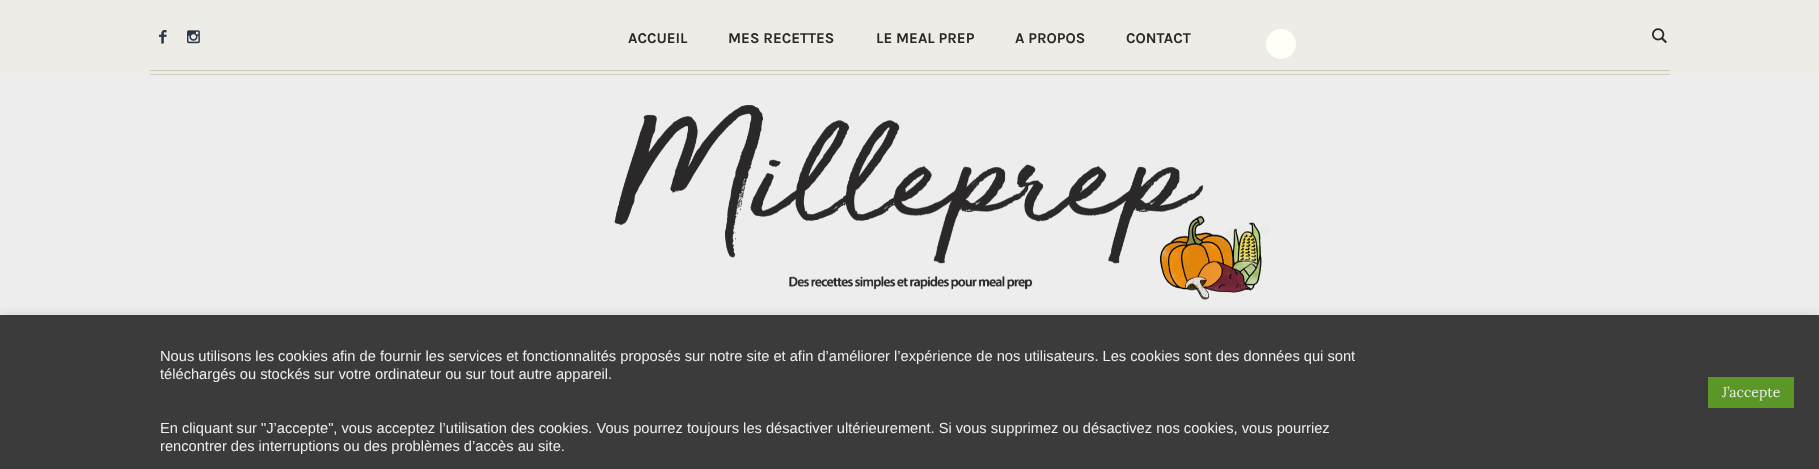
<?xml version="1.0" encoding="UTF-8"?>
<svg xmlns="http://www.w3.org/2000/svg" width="1819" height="469">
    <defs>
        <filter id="blur1" x="-50%" y="-200%" width="200%" height="500%"><feGaussianBlur stdDeviation="5"/></filter>
    </defs>
    <rect width="100%" height="100%" fill="#EDEDED"/>
    <rect x="0" y="0" width="1819" height="75" fill="#EDECE6"/>
    <rect x="150" y="70" width="1520" height="1" fill="#CDCABB"/>
    <rect x="150" y="74" width="1520" height="1" fill="#CDCABB"/>
    <image x="159" y="30" width="8" height="14" href="img_01.png"/>
    <image x="187" y="30" width="13" height="14" href="img_02.png"/>
    <text x="628" y="43" font-family="Karla" font-size="15" font-weight="700" fill="#2B2928">ACCUEIL</text>
    <text x="728" y="43" font-family="Karla" font-size="15" font-weight="700" fill="#2B2928">MES RECETTES</text>
    <text x="876" y="43" font-family="Karla" font-size="15" font-weight="700" fill="#2B2928">LE MEAL PREP</text>
    <text x="1015" y="43" font-family="Karla" font-size="15" font-weight="700" fill="#2B2928">A PROPOS</text>
    <text x="1126" y="43" font-family="Karla" font-size="15" font-weight="700" fill="#2B2928">CONTACT</text>
    <image x="1652" y="28" width="15" height="16" href="img_03.png"/>
    <image x="614" y="105" width="656" height="195" href="img_04.png"/>
    <circle cx="1281" cy="44" r="14" fill="#FFFEF7" stroke="#FFFEF7" stroke-width="2"/>
    <rect x="0" y="314" width="1819" height="154" fill="#A09F9F" fill-opacity="0.3" filter="url(#blur1)"/>
    <rect x="0" y="315" width="1819" height="154" fill="#3B3B3B"/>
    <text font-family="Liberation Sans" font-size="14.67" fill="#EDEDED">
        <tspan x="160" y="361">Nous utilisons les cookies afin de fournir les services et fonctionnalités proposés sur notre site et afin d’améliorer l’expérience de nos utilisateurs. Les cookies sont des données qui sont</tspan>
        <tspan x="160" y="379">téléchargés ou stockés sur votre ordinateur ou sur tout autre appareil.</tspan>
    </text>
    <text font-family="Liberation Sans" font-size="14.67" fill="#EDEDED">
        <tspan x="160" y="433">En cliquant sur "J’accepte", vous acceptez l’utilisation des cookies. Vous pourrez toujours les désactiver ultérieurement. Si vous supprimez ou désactivez nos cookies, vous pourriez</tspan>
        <tspan x="160" y="451">rencontrer des interruptions ou des problèmes d’accès au site.</tspan>
    </text>
    <rect x="1708" y="377" width="86" height="31" fill="#5A9726"/>
    <text x="1722" y="397" font-family="Lora" font-size="14" fill="#EDEDED">J’accepte</text>
</svg>
